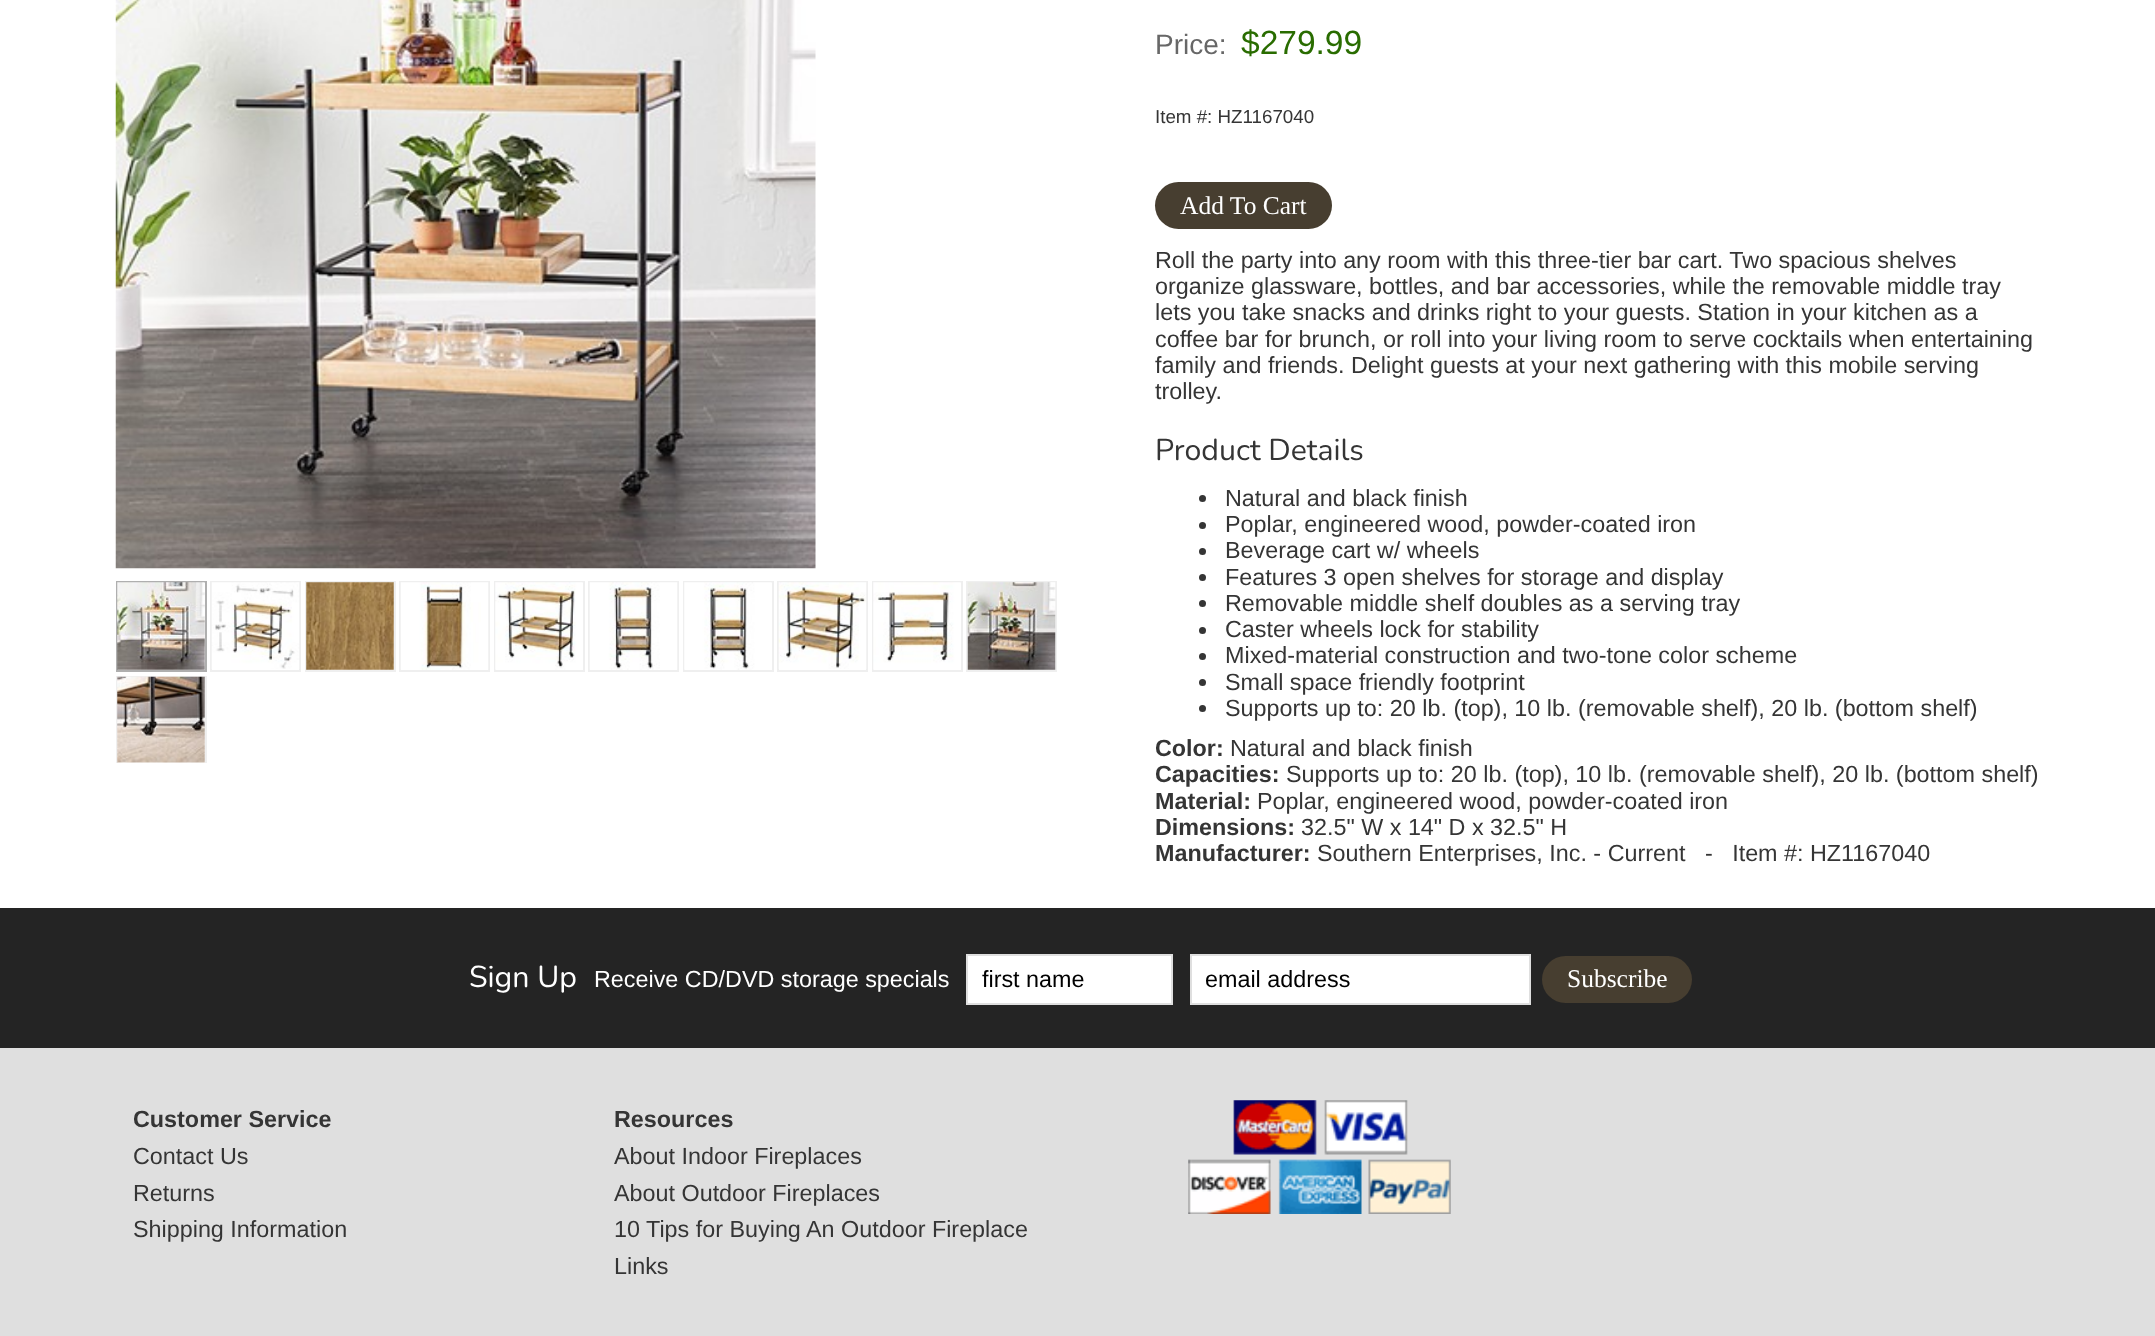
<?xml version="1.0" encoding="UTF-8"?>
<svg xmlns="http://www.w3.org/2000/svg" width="2155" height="1336">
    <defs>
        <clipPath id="clip1"><rect x="116" y="0" width="962" height="763"/></clipPath>
    </defs>
    <rect width="100%" height="100%" fill="#FFFFFF"/>
    <image x="115" y="0" width="701" height="569" href="img_01.png"/>
    <rect x="117" y="582" width="89" height="89" fill="none" stroke="#AFAFAF" stroke-width="2"/>
    <image x="117" y="582" width="88" height="88" href="img_02.png"/>
    <rect x="211" y="582" width="89" height="89" fill="none" stroke="#EFEFEF" stroke-width="2"/>
    <image x="211" y="582" width="89" height="87" href="img_03.png"/>
    <rect x="306" y="582" width="89" height="89" fill="none" stroke="#EFEFEF" stroke-width="2"/>
    <image x="306" y="582" width="88" height="88" href="img_04.png"/>
    <rect x="400" y="582" width="89" height="89" fill="none" stroke="#EFEFEF" stroke-width="2"/>
    <image x="400" y="582" width="89" height="88" href="img_05.png"/>
    <rect x="495" y="582" width="89" height="89" fill="none" stroke="#EFEFEF" stroke-width="2"/>
    <image x="495" y="582" width="88" height="88" href="img_06.png"/>
    <rect x="589" y="582" width="89" height="89" fill="none" stroke="#EFEFEF" stroke-width="2"/>
    <image x="589" y="582" width="89" height="88" href="img_07.png"/>
    <rect x="684" y="582" width="89" height="89" fill="none" stroke="#EFEFEF" stroke-width="2"/>
    <image x="684" y="582" width="88" height="88" href="img_08.png"/>
    <rect x="778" y="582" width="89" height="89" fill="none" stroke="#EFEFEF" stroke-width="2"/>
    <image x="778" y="582" width="89" height="87" href="img_09.png"/>
    <rect x="873" y="582" width="89" height="89" fill="none" stroke="#EFEFEF" stroke-width="2"/>
    <image x="873" y="582" width="88" height="88" href="img_10.png"/>
    <rect x="967" y="582" width="89" height="89" fill="none" stroke="#EFEFEF" stroke-width="2"/>
    <image x="967" y="582" width="89" height="88" href="img_11.png"/>
    <g clip-path="url(#clip1)">
        <rect x="117" y="677" width="89" height="89" fill="none" stroke="#EFEFEF" stroke-width="2"/>
    </g>
    <image x="117" y="676" width="88" height="87" href="img_12.png"/>
    <text x="1155" y="54" font-family="Liberation Sans" font-size="28" fill="#676767">Price:</text>
    <text x="1241" y="54" font-family="Liberation Sans" font-size="33.5" fill="#296C00">$279.99</text>
    <text x="1155" y="123" font-family="Liberation Sans" font-size="18.75" fill="#353535">Item #: HZ1167040</text>
    <rect x="1155" y="182" width="177" height="47" rx="23.5" fill="#473E30"/>
    <text x="1180" y="214" font-family="Liberation Serif" font-size="25.5" fill="#FFFFFF">Add To Cart</text>
    <text font-family="Liberation Sans" font-size="23.35" fill="#353535">
        <tspan x="1155" y="268">Roll the party into any room with this three-tier bar cart. Two spacious shelves</tspan>
        <tspan x="1155" y="294">organize glassware, bottles, and bar accessories, while the removable middle tray</tspan>
        <tspan x="1155" y="320">lets you take snacks and drinks right to your guests. Station in your kitchen as a</tspan>
        <tspan x="1155" y="347">coffee bar for brunch, or roll into your living room to serve cocktails when entertaining</tspan>
        <tspan x="1155" y="373">family and friends. Delight guests at your next gathering with this mobile serving</tspan>
        <tspan x="1155" y="399">trolley.</tspan>
    </text>
    <text x="1155" y="460" font-family="Nunito" font-size="30.25" fill="#353535">Product Details</text>
    <circle cx="1202.5" cy="498.5" r="3.5" fill="#353535"/>
    <text x="1225" y="506" font-family="Liberation Sans" font-size="23.35" fill="#353535">Natural and black finish</text>
    <circle cx="1202.5" cy="525.5" r="3.5" fill="#353535"/>
    <text x="1225" y="532" font-family="Liberation Sans" font-size="23.35" fill="#353535">Poplar, engineered wood, powder-coated iron</text>
    <circle cx="1202.5" cy="551.5" r="3.5" fill="#353535"/>
    <text x="1225" y="558" font-family="Liberation Sans" font-size="23.35" fill="#353535">Beverage cart w/ wheels</text>
    <circle cx="1202.5" cy="577.5" r="3.5" fill="#353535"/>
    <text x="1225" y="585" font-family="Liberation Sans" font-size="23.35" fill="#353535">Features 3 open shelves for storage and display</text>
    <circle cx="1202.5" cy="603.5" r="3.5" fill="#353535"/>
    <text x="1225" y="611" font-family="Liberation Sans" font-size="23.35" fill="#353535">Removable middle shelf doubles as a serving tray</text>
    <circle cx="1202.5" cy="630.5" r="3.5" fill="#353535"/>
    <text x="1225" y="637" font-family="Liberation Sans" font-size="23.35" fill="#353535">Caster wheels lock for stability</text>
    <circle cx="1202.5" cy="656.5" r="3.5" fill="#353535"/>
    <text x="1225" y="663" font-family="Liberation Sans" font-size="23.35" fill="#353535">Mixed-material construction and two-tone color scheme</text>
    <circle cx="1202.5" cy="682.5" r="3.5" fill="#353535"/>
    <text x="1225" y="690" font-family="Liberation Sans" font-size="23.35" fill="#353535">Small space friendly footprint</text>
    <circle cx="1202.5" cy="708.5" r="3.5" fill="#353535"/>
    <text x="1225" y="716" font-family="Liberation Sans" font-size="23.35" fill="#353535">Supports up to: 20 lb. (top), 10 lb. (removable shelf), 20 lb. (bottom shelf)</text>
    <text x="1155" y="756" font-family="Liberation Sans" font-size="23.35" font-weight="700" fill="#353535">Color:</text>
    <text x="1230" y="756" font-family="Liberation Sans" font-size="23.35" fill="#353535">Natural and black finish</text>
    <text x="1155" y="782" font-family="Liberation Sans" font-size="23.35" font-weight="700" fill="#353535">Capacities:</text>
    <text x="1286" y="782" font-family="Liberation Sans" font-size="23.35" fill="#353535">Supports up to: 20 lb. (top), 10 lb. (removable shelf), 20 lb. (bottom shelf)</text>
    <text x="1155" y="809" font-family="Liberation Sans" font-size="23.35" font-weight="700" fill="#353535">Material:</text>
    <text x="1257" y="809" font-family="Liberation Sans" font-size="23.35" fill="#353535">Poplar, engineered wood, powder-coated iron</text>
    <text x="1155" y="835" font-family="Liberation Sans" font-size="23.35" font-weight="700" fill="#353535">Dimensions:</text>
    <text x="1301" y="835" font-family="Liberation Sans" font-size="23.35" fill="#353535">32.5" W x 14" D x 32.5" H</text>
    <text x="1155" y="861" font-family="Liberation Sans" font-size="23.35" font-weight="700" fill="#353535">Manufacturer:</text>
    <text x="1317" y="861" font-family="Liberation Sans" font-size="23.35" fill="#353535" xml:space="preserve">Southern Enterprises, Inc. - Current   -   Item #: HZ1167040</text>
    <rect x="0" y="1048" width="2155" height="288" fill="#DFDFDF"/>
    <rect x="0" y="908" width="2155" height="140" fill="#242424"/>
    <text x="469" y="987" font-family="Nunito" font-size="30.25" fill="#FFFFFF">Sign Up</text>
    <text x="594" y="987" font-family="Liberation Sans" font-size="23.35" fill="#FFFFFF">Receive CD/DVD storage specials</text>
    <rect x="967" y="955" width="205" height="49" fill="#FFFFFF" stroke="#DFDFDF" stroke-width="2"/>
    <text x="982" y="987" font-family="Liberation Sans" font-size="23.35" fill="#000000">first name</text>
    <rect x="1191" y="955" width="339" height="49" fill="#FFFFFF" stroke="#DFDFDF" stroke-width="2"/>
    <text x="1205" y="987" font-family="Liberation Sans" font-size="23.35" fill="#000000">email address</text>
    <rect x="1542" y="956" width="150" height="47" rx="23.5" fill="#473E30"/>
    <text x="1567" y="987" font-family="Liberation Serif" font-size="25.5" fill="#FFFFFF">Subscribe</text>
    <text x="133" y="1127" font-family="Liberation Sans" font-size="23.35" font-weight="700" fill="#353535">Customer Service</text>
    <text font-family="Liberation Sans" font-size="23.35" fill="#353535">
        <tspan x="133" y="1164">Contact Us</tspan>
        <tspan x="133" y="1201">Returns</tspan>
        <tspan x="133" y="1237">Shipping Information</tspan>
    </text>
    <text x="614" y="1127" font-family="Liberation Sans" font-size="23.35" font-weight="700" fill="#353535">Resources</text>
    <text font-family="Liberation Sans" font-size="23.35" fill="#353535">
        <tspan x="614" y="1164">About Indoor Fireplaces</tspan>
        <tspan x="614" y="1201">About Outdoor Fireplaces</tspan>
        <tspan x="614" y="1237">10 Tips for Buying An Outdoor Fireplace</tspan>
        <tspan x="614" y="1274">Links</tspan>
    </text>
    <image x="1188" y="1100" width="263" height="114" href="img_13.png"/>
</svg>
